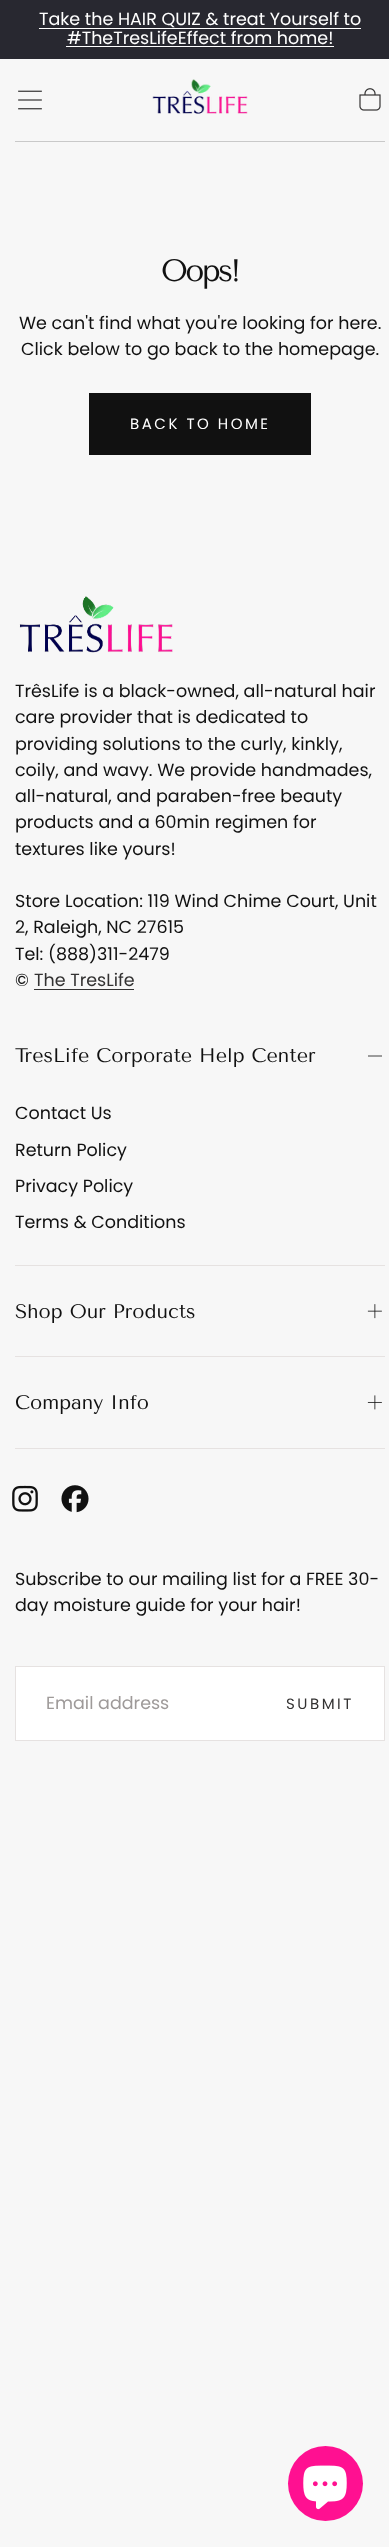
<?xml version="1.0" encoding="UTF-8"?>
<svg xmlns="http://www.w3.org/2000/svg" width="389" height="2547">
    <rect width="100%" height="100%" fill="#F7F7F7"/>
    <rect x="0" y="0" width="389" height="59" fill="#282830"/>
    <text x="39" y="25" font-family="Poppins" font-size="17.5" fill="#FFFFFF">Take the HAIR QUIZ &amp; treat Yourself to</text>
    <rect x="39" y="28" width="322" height="1" fill="#FFFFFF"/>
    <text x="67" y="44" font-family="Poppins" font-size="17.5" fill="#FFFFFF">#TheTresLifeEffect from home!</text>
    <rect x="66" y="46" width="268" height="1" fill="#FFFFFF"/>
    <image x="18" y="90" width="24" height="20" href="img_01.png"/>
    <image x="152" y="79" width="96" height="35" href="img_02.png"/>
    <image x="359" y="88" width="22" height="23" href="img_03.png"/>
    <rect x="15" y="141" width="370" height="1" fill="#C9C9C9"/>
    <text x="161" y="281" font-family="Tenor Sans" font-size="31" letter-spacing="-2.5" fill="#111111">Oops!</text>
    <text x="19" y="329" font-family="Poppins" font-size="17.5" fill="#111111">We can't find what you're looking for here.</text>
    <text x="21" y="355" font-family="Poppins" font-size="17.5" fill="#111111">Click below to go back to the homepage.</text>
    <rect x="89" y="393" width="222" height="62" fill="#111111"/>
    <text x="130" y="429" font-family="Poppins" font-size="15" letter-spacing="2.5" fill="#FFFFFF">BACK TO HOME</text>
    <image x="19" y="596" width="154" height="57" href="img_04.png"/>
    <text font-family="Poppins" font-size="17.5" fill="#111111">
        <tspan x="15" y="697">TrêsLife is a black-owned, all-natural hair</tspan>
        <tspan x="15" y="723">care provider that is dedicated to</tspan>
        <tspan x="15" y="750">providing solutions to the curly, kinkly,</tspan>
        <tspan x="15" y="776">coily, and wavy. We provide handmades,</tspan>
        <tspan x="15" y="802">all-natural, and paraben-free beauty</tspan>
        <tspan x="15" y="828">products and a 60min regimen for</tspan>
        <tspan x="15" y="855">textures like yours!</tspan>
    </text>
    <text font-family="Poppins" font-size="17.5" fill="#111111">
        <tspan x="15" y="907">Store Location: 119 Wind Chime Court, Unit</tspan>
        <tspan x="15" y="933">2, Raleigh, NC 27615</tspan>
        <tspan x="15" y="960">Tel: (888)311-2479</tspan>
        <tspan x="15" y="986">©</tspan>
    </text>
    <text x="34" y="986" font-family="Poppins" font-size="17.5" fill="#333232">The TresLife</text>
    <rect x="34" y="989" width="100" height="1" fill="#333232"/>
    <rect x="15" y="1265" width="370" height="1" fill="#E6E2E1"/>
    <text x="15" y="1062" font-family="Tenor Sans" font-size="19.75" fill="#111111">TresLife Corporate Help Center</text>
    <path d="M 368.5 1056 H 381.5" fill="none" stroke="#111111" stroke-width="0.8" stroke-linecap="square"/>
    <text x="15" y="1119" font-family="Poppins" font-size="17.5" fill="#111111">Contact Us</text>
    <text x="15" y="1156" font-family="Poppins" font-size="17.5" fill="#111111">Return Policy</text>
    <text x="15" y="1192" font-family="Poppins" font-size="17.5" fill="#111111">Privacy Policy</text>
    <text x="15" y="1228" font-family="Poppins" font-size="17.5" fill="#111111">Terms &amp; Conditions</text>
    <rect x="15" y="1356" width="370" height="1" fill="#E6E2E1"/>
    <text x="15" y="1318" font-family="Tenor Sans" font-size="19.75" fill="#111111">Shop Our Products</text>
    <image x="367" y="1304" width="15" height="15" href="img_05.png"/>
    <rect x="15" y="1448" width="370" height="1" fill="#E6E2E1"/>
    <text x="15" y="1409" font-family="Tenor Sans" font-size="19.75" fill="#111111">Company Info</text>
    <image x="367" y="1395" width="15" height="15" href="img_06.png"/>
    <image x="12" y="1485" width="26" height="27" href="img_07.png"/>
    <image x="61" y="1485" width="28" height="28" href="img_08.png"/>
    <text font-family="Poppins" font-size="17.5" fill="#111111">
        <tspan x="15" y="1585">Subscribe to our mailing list for a FREE 30-</tspan>
        <tspan x="15" y="1611">day moisture guide for your hair!</tspan>
    </text>
    <rect x="15.5" y="1666.5" width="369" height="74" fill="#FFFFFF" stroke="#E6E2E1"/>
    <text x="46" y="1709" font-family="Poppins" font-size="17.5" fill="#9E9A99">Email address</text>
    <text x="286" y="1709" font-family="Poppins" font-size="15" letter-spacing="2.5" fill="#333232">SUBMIT</text>
    <circle cx="325.5" cy="2483.5" r="37.5" fill="#FF1091"/>
    <image x="303" y="2465" width="44" height="45" href="img_09.png"/>
</svg>
